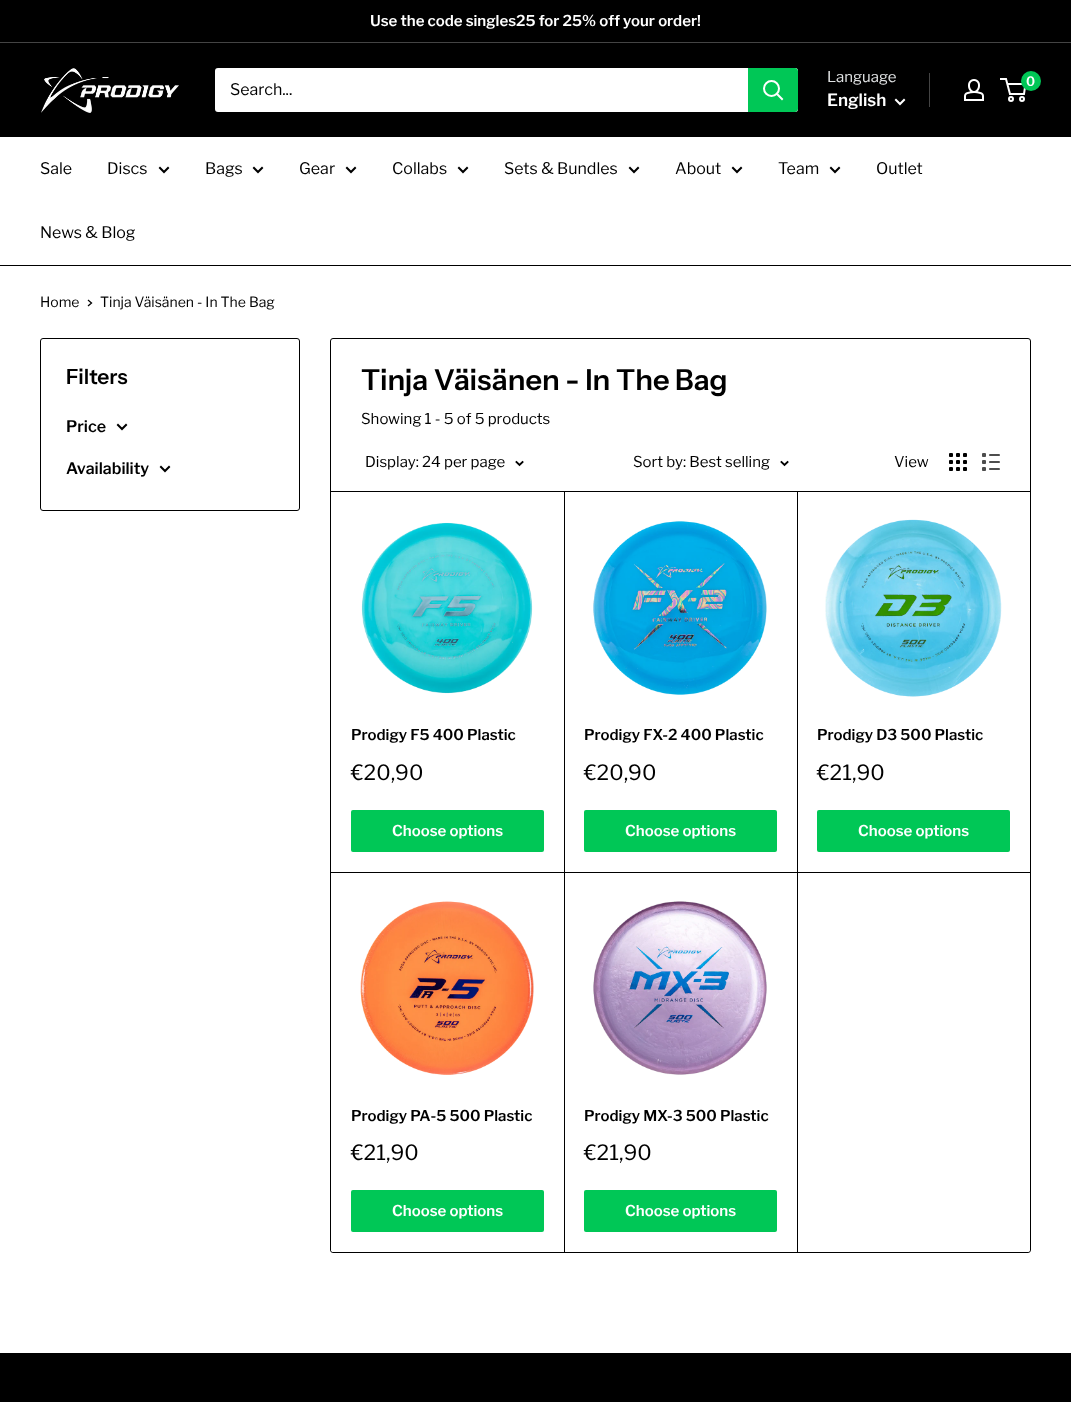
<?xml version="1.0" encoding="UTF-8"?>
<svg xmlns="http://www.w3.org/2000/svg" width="1071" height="1402">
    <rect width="100%" height="100%" fill="#FFFFFF"/>
    <rect x="0" y="0" width="1071" height="42" fill="#000000"/>
    <rect x="0" y="42" width="1071" height="1" fill="#444444"/>
    <text x="370" y="26" font-family="Libre Franklin" font-size="15" font-weight="600" fill="#FFFFFF">Use the code singles25 for 25% off your order!</text>
    <rect x="0" y="43" width="1071" height="94" fill="#000000"/>
    <image x="41" y="68" width="138" height="45" href="img_01.png"/>
    <rect x="215" y="68" width="583" height="44" rx="3" fill="#FFFFFF"/>
    <text x="230" y="95" font-family="Libre Franklin" font-size="16" fill="#000000">Search...</text>
    <path d="M 748 68 H 795 C 796.5 68 798 69.5 798 71 V 109 C 798 110.5 796.5 112 795 112 H 748 Z" fill="#00C756"/>
    <path d="M 782 99 L 777 94" fill="none" stroke="#FFFFFF" stroke-width="2" stroke-linecap="square"/>
    <circle cx="771.5" cy="88.5" r="7.5" fill="none" stroke="#FFFFFF" stroke-width="2"/>
    <text x="827" y="82" font-family="Libre Franklin" font-size="15" fill="#E1E3E4">Language</text>
    <text x="827" y="106" font-family="Libre Franklin" font-size="17" font-weight="600" fill="#FFFFFF">English</text>
    <path d="M 904 100 L 900 104 L 896 100" fill="none" stroke="#FFFFFF" stroke-width="2" stroke-linecap="square"/>
    <rect x="929" y="73" width="1" height="34" fill="#444444"/>
    <image x="964" y="79" width="20" height="22" href="img_02.png"/>
    <circle cx="1011" cy="99" r="2" fill="none" stroke="#FFFFFF" stroke-width="2"/>
    <circle cx="1022" cy="99" r="2" fill="none" stroke="#FFFFFF" stroke-width="2"/>
    <path d="M 1007.5 84 H 1025.5 L 1024 94 H 1010 L 1006 79 H 1000" fill="none" stroke="#FFFFFF" stroke-width="2"/>
    <circle cx="1031" cy="81" r="10" fill="#00C756"/>
    <text x="1026" y="86" font-family="Libre Franklin" font-size="13" font-weight="600" fill="#FFFFFF">0</text>
    <rect x="0" y="265" width="1071" height="1" fill="#000000"/>
    <text x="40" y="174" font-family="Libre Franklin" font-size="16" fill="#000000">Sale</text>
    <text x="107" y="174" font-family="Libre Franklin" font-size="16" fill="#000000">Discs</text>
    <path d="M 168 168 L 164 172 L 160 168" fill="none" stroke="#000000" stroke-width="2" stroke-linecap="square"/>
    <text x="205" y="174" font-family="Libre Franklin" font-size="16" fill="#000000">Bags</text>
    <path d="M 262 168 L 258 172 L 254 168" fill="none" stroke="#000000" stroke-width="2" stroke-linecap="square"/>
    <text x="299" y="174" font-family="Libre Franklin" font-size="16" fill="#000000">Gear</text>
    <path d="M 355 168 L 351 172 L 347 168" fill="none" stroke="#000000" stroke-width="2" stroke-linecap="square"/>
    <text x="392" y="174" font-family="Libre Franklin" font-size="16" fill="#000000">Collabs</text>
    <path d="M 467 168 L 463 172 L 459 168" fill="none" stroke="#000000" stroke-width="2" stroke-linecap="square"/>
    <text x="504" y="174" font-family="Libre Franklin" font-size="16" fill="#000000">Sets &amp; Bundles</text>
    <path d="M 638 168 L 634 172 L 630 168" fill="none" stroke="#000000" stroke-width="2" stroke-linecap="square"/>
    <text x="675" y="174" font-family="Libre Franklin" font-size="16" fill="#000000">About</text>
    <path d="M 741 168 L 737 172 L 733 168" fill="none" stroke="#000000" stroke-width="2" stroke-linecap="square"/>
    <text x="778" y="174" font-family="Libre Franklin" font-size="16" fill="#000000">Team</text>
    <path d="M 839 168 L 835 172 L 831 168" fill="none" stroke="#000000" stroke-width="2" stroke-linecap="square"/>
    <text x="876" y="174" font-family="Libre Franklin" font-size="16" fill="#000000">Outlet</text>
    <text x="40" y="238" font-family="Libre Franklin" font-size="16" fill="#000000">News &amp; Blog</text>
    <text x="40" y="307" font-family="Libre Franklin" font-size="14" fill="#000000">Home</text>
    <path d="M 88.5 300.5 L 91.5 303 L 88.5 305.5" fill="none" stroke="#000000" stroke-width="1.3" stroke-linecap="square"/>
    <text x="100" y="307" font-family="Libre Franklin" font-size="14" fill="#000000">Tinja Väisänen - In The Bag</text>
    <rect x="40.5" y="338.5" width="259" height="172" rx="2.5" fill="none" stroke="#000000"/>
    <text x="66" y="384" font-family="Instrument Sans" font-size="21" font-weight="600" fill="#000000">Filters</text>
    <text x="66" y="432" font-family="Libre Franklin" font-size="16" font-weight="600" fill="#000000">Price</text>
    <path d="M 126 425 L 122 429 L 118 425 M 169 467 L 165 471 L 161 467" fill="none" stroke="#000000" stroke-width="2" stroke-linecap="square"/>
    <text x="66" y="474" font-family="Libre Franklin" font-size="16" font-weight="600" fill="#000000">Availability</text>
    <rect x="330.5" y="338.5" width="700" height="914" rx="2.5" fill="none" stroke="#000000"/>
    <text x="361" y="390" font-family="Instrument Sans" font-size="29" font-weight="600" fill="#000000">Tinja Väisänen - In The Bag</text>
    <text x="361" y="424" font-family="Libre Franklin" font-size="15" fill="#000000">Showing 1 - 5 of 5 products</text>
    <rect x="331" y="491" width="699" height="761" rx="3" fill="#FFFFFF"/>
    <path d="M 331 872 H 564 V 1252 H 334 C 332.5 1252 331 1250.5 331 1249 Z" fill="#FFFFFF"/>
    <rect x="331" y="872" width="699" height="1" fill="#000000"/>
    <rect x="564" y="491" width="1" height="761" fill="#000000"/>
    <rect x="797" y="491" width="1" height="761" fill="#000000"/>
    <rect x="331" y="491" width="699" height="1" fill="#000000"/>
    <text x="365" y="467" font-family="Libre Franklin" font-size="15" fill="#000000">Display: 24 per page</text>
    <path d="M 522.5 462 L 519.5 465 L 516.5 462" fill="none" stroke="#000000" stroke-width="1.9" stroke-linecap="square"/>
    <text x="633" y="467" font-family="Libre Franklin" font-size="15" fill="#000000">Sort by: Best selling</text>
    <path d="M 787.5 462 L 784.5 465 L 781.5 462" fill="none" stroke="#000000" stroke-width="1.9" stroke-linecap="square"/>
    <text x="894" y="467" font-family="Libre Franklin" font-size="15" fill="#000000">View</text>
    <image x="949" y="453" width="18" height="18" href="img_03.png"/>
    <image x="982" y="453" width="18" height="18" href="img_04.png"/>
    <image x="361" y="522" width="172" height="172" href="img_05.png"/>
    <text x="351" y="740" font-family="Libre Franklin" font-size="15" font-weight="600" fill="#000000">Prodigy F5 400 Plastic</text>
    <text x="351" y="780" font-family="Libre Franklin" font-size="21" fill="#000000">€20,90</text>
    <rect x="351" y="810" width="193" height="42" rx="2" fill="#00C756"/>
    <text x="392" y="836" font-family="Libre Franklin" font-size="15" font-weight="600" fill="#FFFFFF">Choose options</text>
    <image x="593" y="521" width="174" height="174" href="img_06.png"/>
    <text x="584" y="740" font-family="Libre Franklin" font-size="15" font-weight="600" fill="#000000">Prodigy FX-2 400 Plastic</text>
    <text x="584" y="780" font-family="Libre Franklin" font-size="21" fill="#000000">€20,90</text>
    <rect x="584" y="810" width="193" height="42" rx="2" fill="#00C756"/>
    <text x="625" y="836" font-family="Libre Franklin" font-size="15" font-weight="600" fill="#FFFFFF">Choose options</text>
    <image x="825" y="519" width="177" height="178" href="img_07.png"/>
    <text x="817" y="740" font-family="Libre Franklin" font-size="15" font-weight="600" fill="#000000">Prodigy D3 500 Plastic</text>
    <text x="817" y="780" font-family="Libre Franklin" font-size="21" fill="#000000">€21,90</text>
    <rect x="817" y="810" width="193" height="42" rx="2" fill="#00C756"/>
    <text x="858" y="836" font-family="Libre Franklin" font-size="15" font-weight="600" fill="#FFFFFF">Choose options</text>
    <image x="360" y="901" width="174" height="174" href="img_08.png"/>
    <text x="351" y="1121" font-family="Libre Franklin" font-size="15" font-weight="600" fill="#000000">Prodigy PA-5 500 Plastic</text>
    <text x="351" y="1160" font-family="Libre Franklin" font-size="21" fill="#000000">€21,90</text>
    <rect x="351" y="1190" width="193" height="42" rx="2" fill="#00C756"/>
    <text x="392" y="1216" font-family="Libre Franklin" font-size="15" font-weight="600" fill="#FFFFFF">Choose options</text>
    <image x="593" y="901" width="174" height="174" href="img_09.png"/>
    <text x="584" y="1121" font-family="Libre Franklin" font-size="15" font-weight="600" fill="#000000">Prodigy MX-3 500 Plastic</text>
    <text x="584" y="1160" font-family="Libre Franklin" font-size="21" fill="#000000">€21,90</text>
    <rect x="584" y="1190" width="193" height="42" rx="2" fill="#00C756"/>
    <text x="625" y="1216" font-family="Libre Franklin" font-size="15" font-weight="600" fill="#FFFFFF">Choose options</text>
    <rect x="0" y="1353" width="1071" height="49" fill="#000000"/>
</svg>
